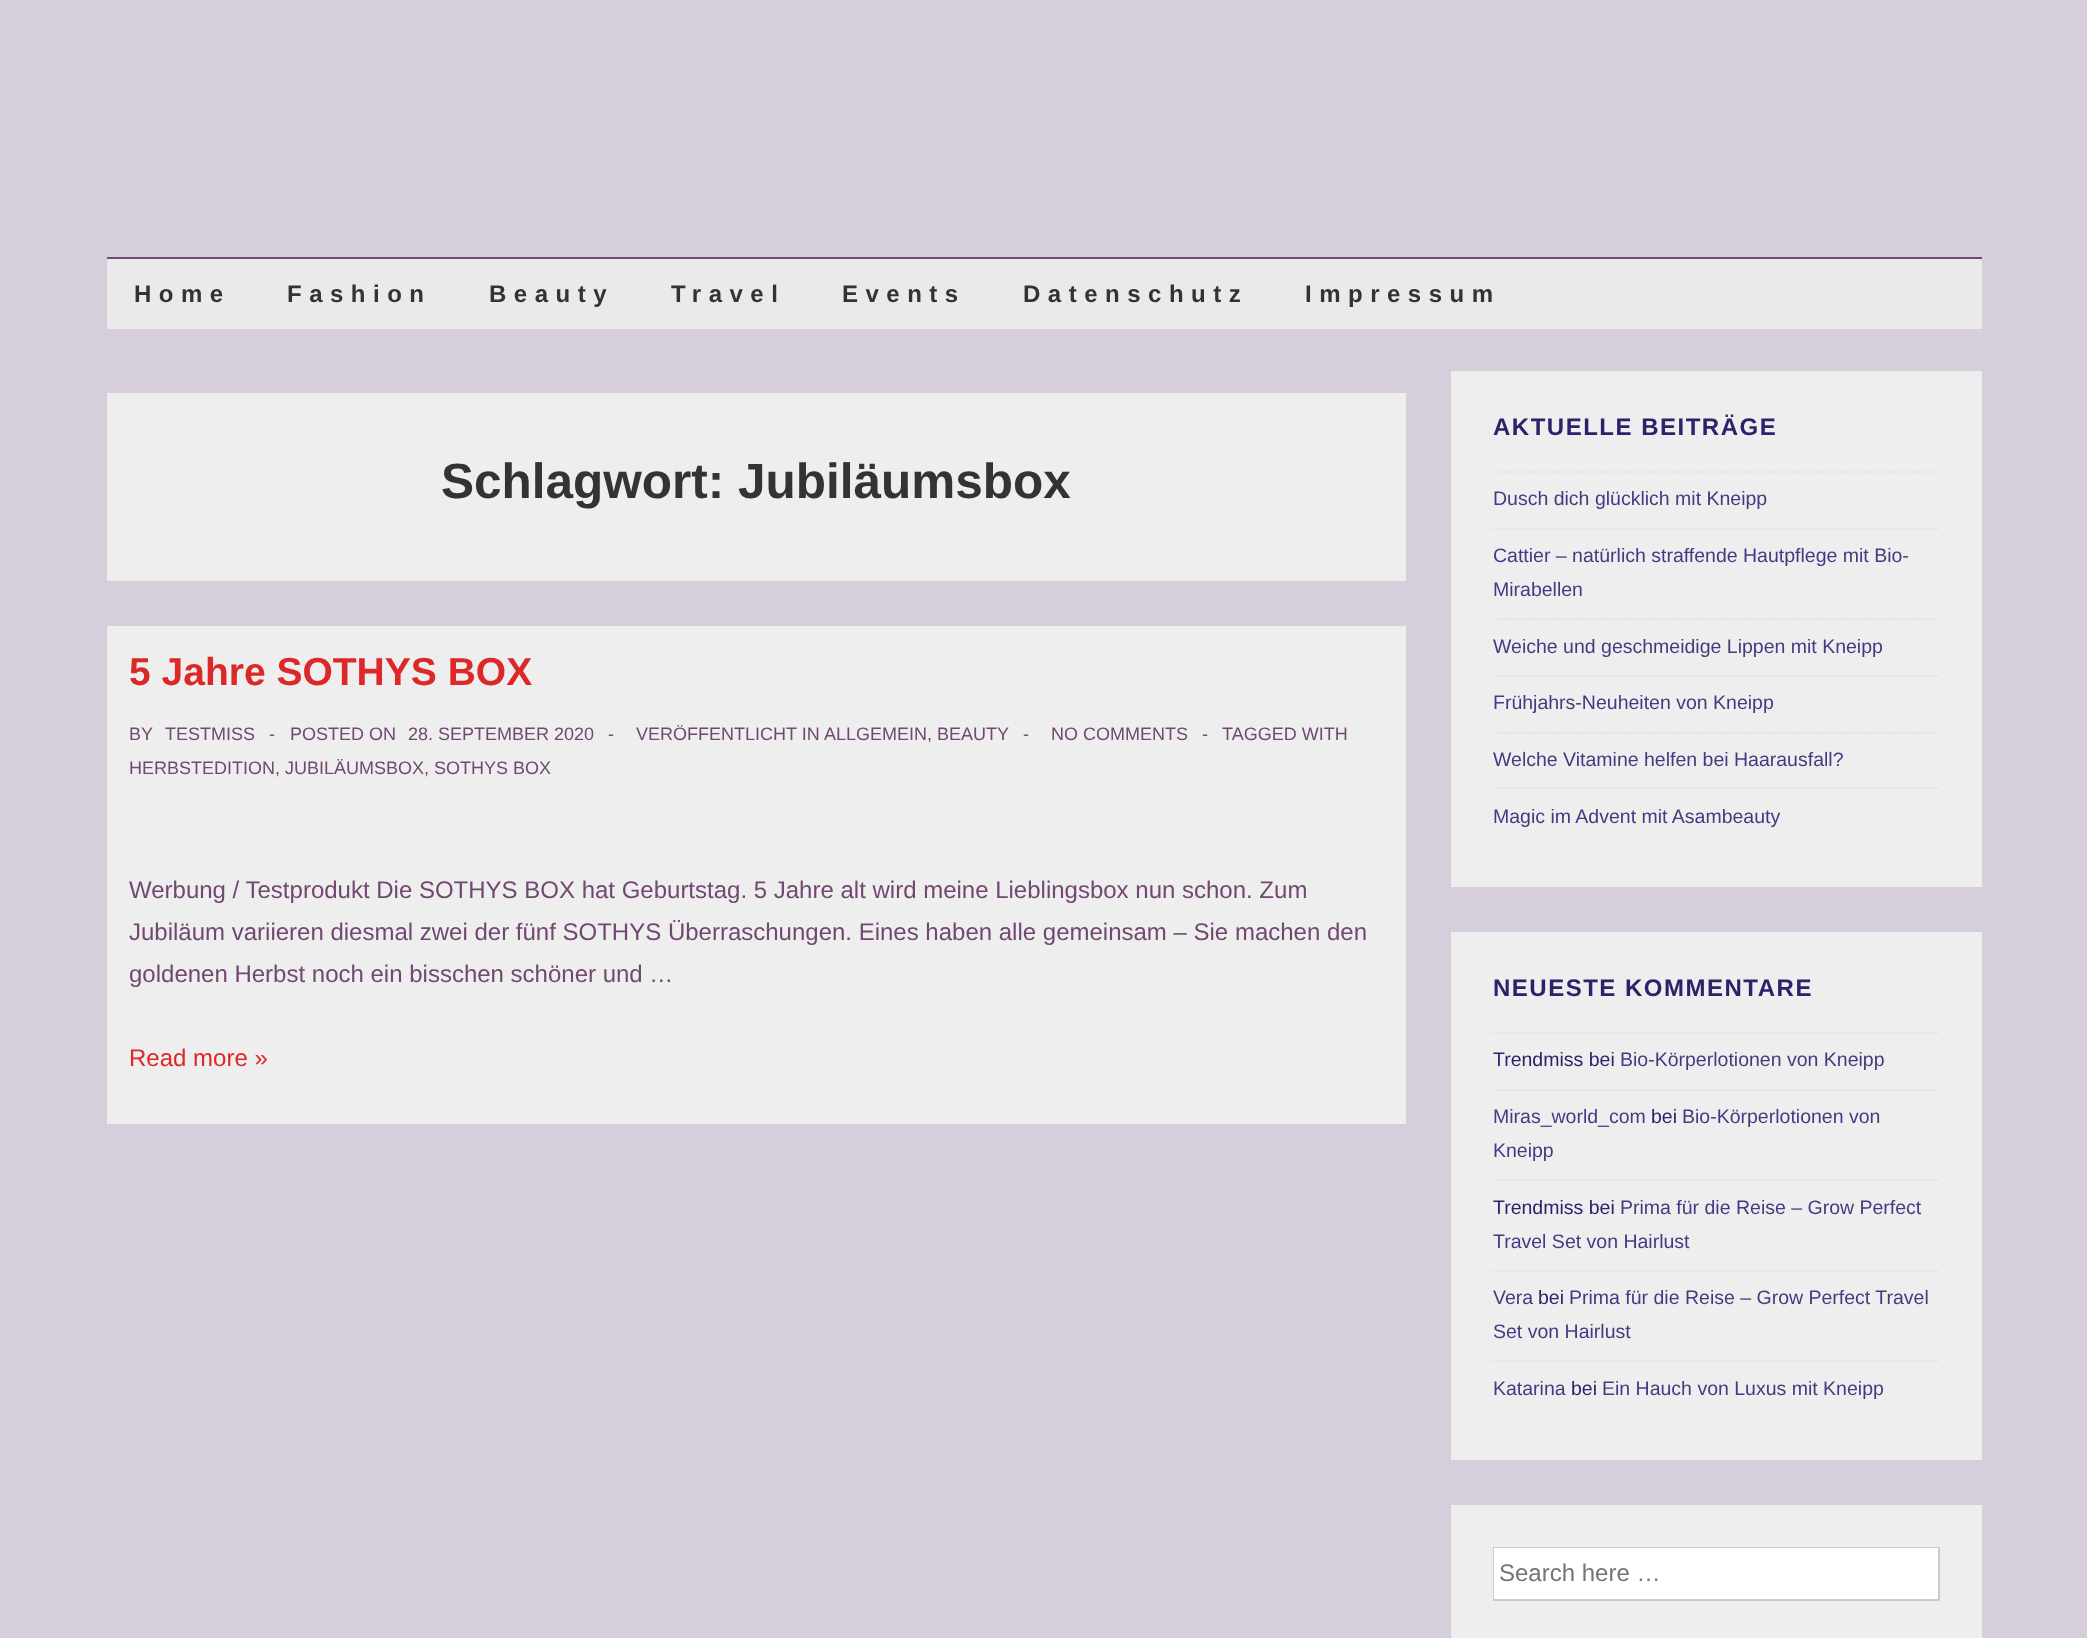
<?xml version="1.0" encoding="UTF-8"?>
<svg xmlns="http://www.w3.org/2000/svg" width="2087" height="1638">
    <rect width="100%" height="100%" fill="#D7CEDB"/>
    <rect x="107" y="259" width="1875" height="70" fill="#EAEAEA"/>
    <rect x="107" y="257" width="1875" height="2" fill="#714871"/>
    <text x="134" y="302" font-family="Liberation Sans" font-size="24" font-weight="700" letter-spacing="7.5" fill="#333333">Home</text>
    <text x="287" y="302" font-family="Liberation Sans" font-size="24" font-weight="700" letter-spacing="7.5" fill="#333333">Fashion</text>
    <text x="489" y="302" font-family="Liberation Sans" font-size="24" font-weight="700" letter-spacing="7.5" fill="#333333">Beauty</text>
    <text x="671" y="302" font-family="Liberation Sans" font-size="24" font-weight="700" letter-spacing="7.5" fill="#333333">Travel</text>
    <text x="842" y="302" font-family="Liberation Sans" font-size="24" font-weight="700" letter-spacing="7.5" fill="#333333">Events</text>
    <text x="1023" y="302" font-family="Liberation Sans" font-size="24" font-weight="700" letter-spacing="7.5" fill="#333333">Datenschutz</text>
    <text x="1305" y="302" font-family="Liberation Sans" font-size="24" font-weight="700" letter-spacing="7.5" fill="#333333">Impressum</text>
    <rect x="107" y="393" width="1299" height="188" fill="#EEEEEE"/>
    <text x="441" y="498" font-family="Liberation Sans" font-size="49.5" font-weight="700" fill="#333333">Schlagwort: Jubiläumsbox</text>
    <rect x="107" y="626" width="1299" height="498" fill="#EEEEEE"/>
    <text x="129" y="685" font-family="Liberation Sans" font-size="39" font-weight="700" fill="#DD2828">5 Jahre SOTHYS BOX</text>
    <text x="129" y="740" font-family="Liberation Sans" font-size="18" fill="#714871">BY</text>
    <text x="165" y="740" font-family="Liberation Sans" font-size="18" fill="#714871">TESTMISS</text>
    <text x="269" y="740" font-family="Liberation Sans" font-size="18" fill="#714871">-</text>
    <text x="290" y="740" font-family="Liberation Sans" font-size="18" fill="#714871">POSTED ON</text>
    <text x="408" y="740" font-family="Liberation Sans" font-size="18" fill="#714871">28. SEPTEMBER 2020</text>
    <text x="608" y="740" font-family="Liberation Sans" font-size="18" fill="#714871">-</text>
    <text x="636" y="740" font-family="Liberation Sans" font-size="18" fill="#714871">VERÖFFENTLICHT IN</text>
    <text x="824" y="740" font-family="Liberation Sans" font-size="18" fill="#714871">ALLGEMEIN, BEAUTY</text>
    <text x="1023" y="740" font-family="Liberation Sans" font-size="18" fill="#714871">-</text>
    <text x="1051" y="740" font-family="Liberation Sans" font-size="18" fill="#714871">NO COMMENTS</text>
    <text x="1202" y="740" font-family="Liberation Sans" font-size="18" fill="#714871">-</text>
    <text x="1222" y="740" font-family="Liberation Sans" font-size="18" fill="#714871">TAGGED WITH</text>
    <text x="129" y="774" font-family="Liberation Sans" font-size="18" fill="#714871">HERBSTEDITION, JUBILÄUMSBOX, SOTHYS BOX</text>
    <text font-family="Liberation Sans" font-size="24" fill="#714871">
        <tspan x="129" y="898">Werbung / Testprodukt Die SOTHYS BOX hat Geburtstag. 5 Jahre alt wird meine Lieblingsbox nun schon. Zum</tspan>
        <tspan x="129" y="940">Jubiläum variieren diesmal zwei der fünf SOTHYS Überraschungen. Eines haben alle gemeinsam – Sie machen den</tspan>
        <tspan x="129" y="982">goldenen Herbst noch ein bisschen schöner und …</tspan>
    </text>
    <text x="129" y="1066" font-family="Liberation Sans" font-size="24" fill="#DD2828">Read more »</text>
    <rect x="1451" y="371" width="531" height="516" fill="#EEEEEE"/>
    <text x="1493" y="435" font-family="Liberation Sans" font-size="24" font-weight="700" letter-spacing="1.5" fill="#2B226B">AKTUELLE BEITRÄGE</text>
    <path d="M 1492.5 472 H 1939.5" fill="none" stroke="#E0E0E0" stroke-width="1.5" stroke-dasharray="1.5 1.5"/>
    <text x="1493" y="505" font-family="Liberation Sans" font-size="19.5" fill="#443A82">Dusch dich glücklich mit Kneipp</text>
    <path d="M 1492.5 529 H 1939.5" fill="none" stroke="#E0E0E0" stroke-width="1.5" stroke-dasharray="1.5 1.5"/>
    <text font-family="Liberation Sans" font-size="19.5" fill="#443A82">
        <tspan x="1493" y="562">Cattier – natürlich straffende Hautpflege mit Bio-</tspan>
        <tspan x="1493" y="596">Mirabellen</tspan>
    </text>
    <path d="M 1492.5 619 H 1939.5" fill="none" stroke="#E0E0E0" stroke-width="1.5" stroke-dasharray="1.5 1.5"/>
    <text x="1493" y="653" font-family="Liberation Sans" font-size="19.5" fill="#443A82">Weiche und geschmeidige Lippen mit Kneipp</text>
    <path d="M 1492.5 676 H 1939.5" fill="none" stroke="#E0E0E0" stroke-width="1.5" stroke-dasharray="1.5 1.5"/>
    <text x="1493" y="709" font-family="Liberation Sans" font-size="19.5" fill="#443A82">Frühjahrs-Neuheiten von Kneipp</text>
    <path d="M 1492.5 733 H 1939.5" fill="none" stroke="#E0E0E0" stroke-width="1.5" stroke-dasharray="1.5 1.5"/>
    <text x="1493" y="766" font-family="Liberation Sans" font-size="19.5" fill="#443A82">Welche Vitamine helfen bei Haarausfall?</text>
    <path d="M 1492.5 788 H 1939.5" fill="none" stroke="#E0E0E0" stroke-width="1.5" stroke-dasharray="1.5 1.5"/>
    <text x="1493" y="823" font-family="Liberation Sans" font-size="19.5" fill="#443A82">Magic im Advent mit Asambeauty</text>
    <rect x="1451" y="932" width="531" height="528" fill="#EEEEEE"/>
    <text x="1493" y="996" font-family="Liberation Sans" font-size="24" font-weight="700" letter-spacing="1.5" fill="#2B226B">NEUESTE KOMMENTARE</text>
    <path d="M 1492.5 1033 H 1939.5" fill="none" stroke="#E0E0E0" stroke-width="1.5" stroke-dasharray="1.5 1.5"/>
    <text x="1493" y="1066" font-family="Liberation Sans" font-size="19.5" fill="#2B226B">Trendmiss bei</text>
    <text x="1620" y="1066" font-family="Liberation Sans" font-size="19.5" fill="#443A82">Bio-Körperlotionen von Kneipp</text>
    <path d="M 1492.5 1090 H 1939.5" fill="none" stroke="#E0E0E0" stroke-width="1.5" stroke-dasharray="1.5 1.5"/>
    <text x="1493" y="1123" font-family="Liberation Sans" font-size="19.5" fill="#443A82">Miras_world_com</text>
    <text x="1651" y="1123" font-family="Liberation Sans" font-size="19.5" fill="#2B226B">bei</text>
    <text x="1682" y="1123" font-family="Liberation Sans" font-size="19.5" fill="#443A82">Bio-Körperlotionen von</text>
    <text x="1493" y="1157" font-family="Liberation Sans" font-size="19.5" fill="#443A82">Kneipp</text>
    <path d="M 1492.5 1180 H 1939.5" fill="none" stroke="#E0E0E0" stroke-width="1.5" stroke-dasharray="1.5 1.5"/>
    <text x="1493" y="1214" font-family="Liberation Sans" font-size="19.5" fill="#2B226B">Trendmiss bei</text>
    <text x="1620" y="1214" font-family="Liberation Sans" font-size="19.5" fill="#443A82">Prima für die Reise – Grow Perfect</text>
    <text x="1493" y="1248" font-family="Liberation Sans" font-size="19.5" fill="#443A82">Travel Set von Hairlust</text>
    <path d="M 1492.5 1271 H 1939.5" fill="none" stroke="#E0E0E0" stroke-width="1.5" stroke-dasharray="1.5 1.5"/>
    <text x="1493" y="1304" font-family="Liberation Sans" font-size="19.5" fill="#443A82">Vera</text>
    <text x="1538" y="1304" font-family="Liberation Sans" font-size="19.5" fill="#2B226B">bei</text>
    <text x="1569" y="1304" font-family="Liberation Sans" font-size="19.5" fill="#443A82">Prima für die Reise – Grow Perfect Travel</text>
    <text x="1493" y="1338" font-family="Liberation Sans" font-size="19.5" fill="#443A82">Set von Hairlust</text>
    <path d="M 1492.5 1361 H 1939.5" fill="none" stroke="#E0E0E0" stroke-width="1.5" stroke-dasharray="1.5 1.5"/>
    <text x="1493" y="1395" font-family="Liberation Sans" font-size="19.5" fill="#443A82">Katarina</text>
    <text x="1571" y="1395" font-family="Liberation Sans" font-size="19.5" fill="#2B226B">bei</text>
    <text x="1602" y="1395" font-family="Liberation Sans" font-size="19.5" fill="#443A82">Ein Hauch von Luxus mit Kneipp</text>
    <rect x="1451" y="1505" width="531" height="133" fill="#EEEEEE"/>
    <rect x="1494" y="1548" width="445" height="52" fill="none" stroke="#CCCCCC" stroke-width="2"/>
    <rect x="1494" y="1548" width="444" height="51" fill="#FFFFFF"/>
    <text x="1499" y="1581" font-family="Liberation Sans" font-size="24" fill="#757575">Search here …</text>
</svg>
